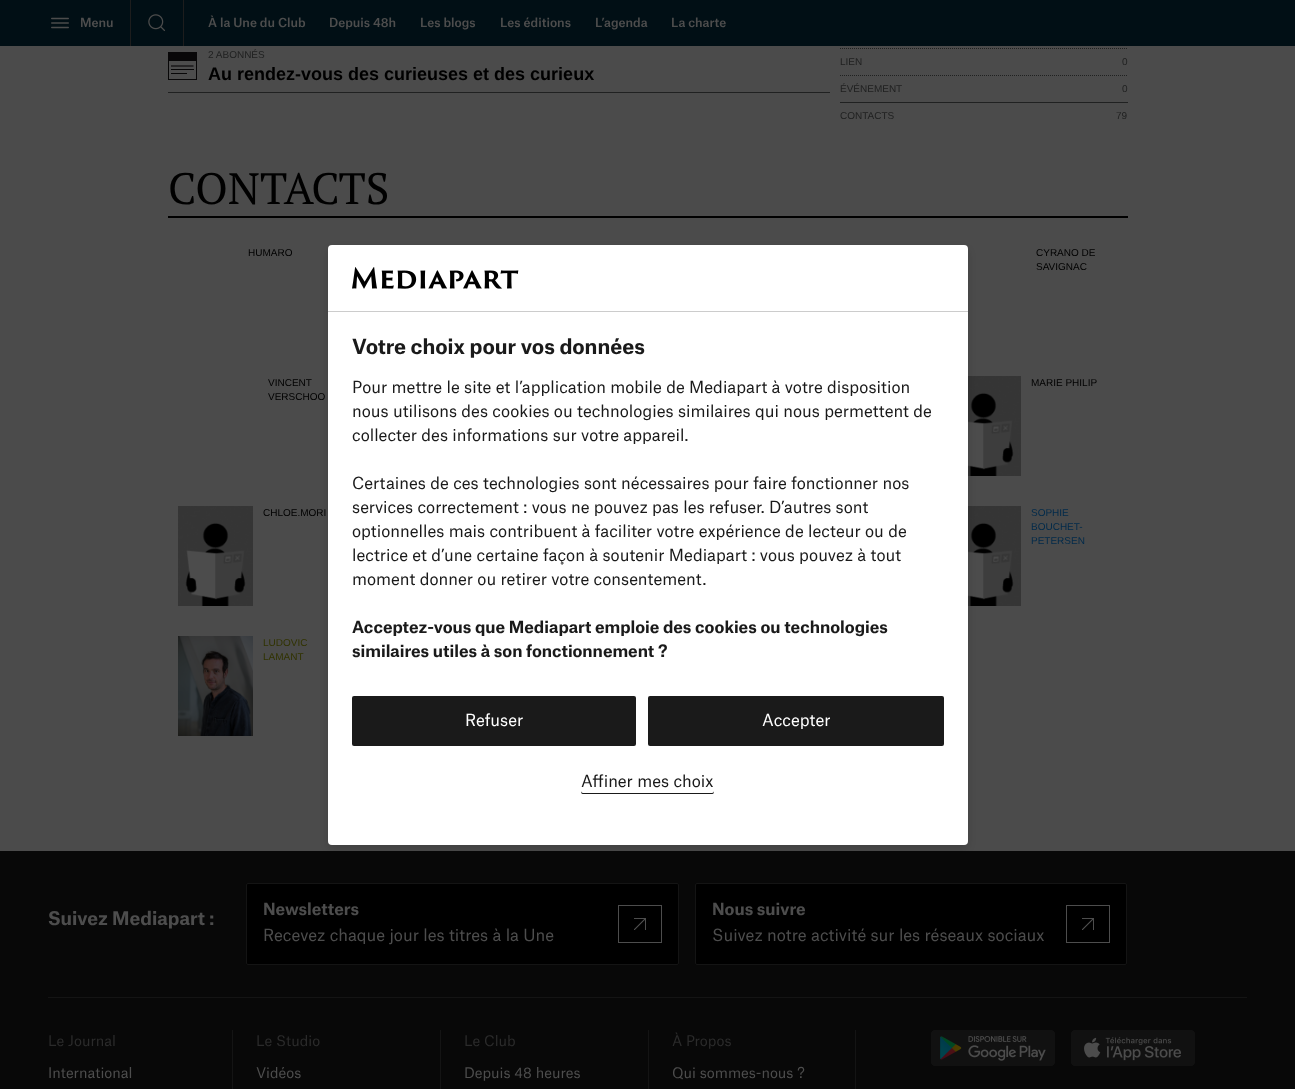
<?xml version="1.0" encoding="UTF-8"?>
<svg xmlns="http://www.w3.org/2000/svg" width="1295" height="1089">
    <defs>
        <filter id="blur1" x="-50%" y="-200%" width="200%" height="500%"><feGaussianBlur stdDeviation="5"/></filter>
        <linearGradient id="g1" gradientUnits="userSpaceOnUse" x1="646" y1="930" x2="634" y2="918"><stop offset="0" stop-color="#000000"/><stop offset="0.44" stop-color="#000000"/><stop offset="0.5" stop-color="#4D4D4D"/><stop offset="0.56" stop-color="#000000"/><stop offset="1" stop-color="#000000"/></linearGradient>
        <linearGradient id="g2" gradientUnits="userSpaceOnUse" x1="1094" y1="930" x2="1082" y2="918"><stop offset="0" stop-color="#000000"/><stop offset="0.44" stop-color="#000000"/><stop offset="0.5" stop-color="#4D4D4D"/><stop offset="0.56" stop-color="#000000"/><stop offset="1" stop-color="#000000"/></linearGradient>
    </defs>
    <rect width="100%" height="100%" fill="#4B4B4B"/>
    <rect x="0" y="0" width="1295" height="46" fill="#010F15"/>
    <image x="51" y="17" width="18" height="12" href="img_01.png"/>
    <text x="80" y="27" font-family="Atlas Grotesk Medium" font-size="12" font-weight="500" fill="#4D4D4D">Menu</text>
    <rect x="130" y="0" width="1" height="46" fill="#1D1D1D"/>
    <image x="148" y="14" width="18" height="18" href="img_02.png"/>
    <rect x="183" y="0" width="1" height="46" fill="#1D1D1D"/>
    <text x="208" y="27" font-family="Atlas Grotesk Medium" font-size="12" font-weight="500" fill="#4D4D4D">À la Une du Club</text>
    <text x="329" y="27" font-family="Atlas Grotesk Medium" font-size="12" font-weight="500" fill="#4D4D4D">Depuis 48h</text>
    <text x="420" y="27" font-family="Atlas Grotesk Medium" font-size="12" font-weight="500" fill="#4D4D4D">Les blogs</text>
    <text x="500" y="27" font-family="Atlas Grotesk Medium" font-size="12" font-weight="500" fill="#4D4D4D">Les éditions</text>
    <text x="595" y="27" font-family="Atlas Grotesk Medium" font-size="12" font-weight="500" fill="#4D4D4D">L’agenda</text>
    <text x="671" y="27" font-family="Atlas Grotesk Medium" font-size="12" font-weight="500" fill="#4D4D4D">La charte</text>
    <rect x="168" y="92" width="662" height="1" fill="#202121"/>
    <rect x="168" y="52" width="29" height="28" fill="#080708"/>
    <rect x="169" y="61" width="27" height="18" fill="#4D4D4D"/>
    <path d="M 171 66 H 193.5" fill="none" stroke="#080708" stroke-width="1.1"/>
    <rect x="171" y="69" width="23" height="1" fill="#080708"/>
    <rect x="171" y="73" width="16" height="1" fill="#080708"/>
    <text x="208" y="58" font-family="Liberation Sans" font-size="10" fill="#202121">2 ABONNÉS</text>
    <text x="208" y="80" font-family="Liberation Sans" font-size="18" font-weight="700" fill="#000000">Au rendez-vous des curieuses et des curieux</text>
    <path d="M 840 48.5 H 1128" fill="none" stroke="#202121" stroke-dasharray="1 1"/>
    <text x="840" y="65" font-family="Liberation Sans" font-size="10" fill="#202121">LIEN</text>
    <text x="1122" y="65" font-family="Liberation Sans" font-size="10" fill="#202121">0</text>
    <path d="M 840 75.5 H 1128" fill="none" stroke="#202121" stroke-dasharray="1 1"/>
    <text x="840" y="92" font-family="Liberation Sans" font-size="10" fill="#202121">ÉVÉNEMENT</text>
    <text x="1122" y="92" font-family="Liberation Sans" font-size="10" fill="#202121">0</text>
    <rect x="840" y="102" width="288" height="1" fill="#202121"/>
    <text x="840" y="119" font-family="Liberation Sans" font-size="10" fill="#202121">CONTACTS</text>
    <text x="1116" y="119" font-family="Liberation Sans" font-size="10" fill="#202121">79</text>
    <rect x="168" y="216" width="960" height="2" fill="#000000"/>
    <text x="168" y="204" font-family="PT Serif" font-size="44" fill="#000000">CONTACTS</text>
    <text x="248" y="256" font-family="Liberation Sans" font-size="10" fill="#000000">HUMARO</text>
    <text font-family="Liberation Sans" font-size="10" fill="#000000">
        <tspan x="1036" y="256">CYRANO DE</tspan>
        <tspan x="1036" y="270">SAVIGNAC</tspan>
    </text>
    <text font-family="Liberation Sans" font-size="10" fill="#000000">
        <tspan x="268" y="386">VINCENT</tspan>
        <tspan x="268" y="400">VERSCHOO</tspan>
    </text>
    <image x="968" y="376" width="53" height="100" href="img_03.png"/>
    <text x="1031" y="386" font-family="Liberation Sans" font-size="10" fill="#000000">MARIE PHILIP</text>
    <image x="178" y="506" width="75" height="100" href="img_04.png"/>
    <text x="263" y="516" font-family="Liberation Sans" font-size="10" fill="#000000">CHLOE.MORI</text>
    <image x="968" y="506" width="53" height="100" href="img_03.png"/>
    <text font-family="Liberation Sans" font-size="10" fill="#002A4A">
        <tspan x="1031" y="516">SOPHIE</tspan>
        <tspan x="1031" y="530">BOUCHET-</tspan>
        <tspan x="1031" y="544">PETERSEN</tspan>
    </text>
    <image x="178" y="636" width="75" height="100" href="img_05.png"/>
    <text font-family="Liberation Sans" font-size="10" fill="#313300">
        <tspan x="263" y="646">LUDOVIC</tspan>
        <tspan x="263" y="660">LAMANT</tspan>
    </text>
    <rect x="0" y="851" width="1295" height="238" fill="#080808"/>
    <rect x="328" y="249" width="640" height="600" rx="4" fill="#000000" fill-opacity="0.15" filter="url(#blur1)"/>
    <rect x="328" y="245" width="640" height="600" rx="4" fill="#FFFFFF"/>
    <rect x="328" y="311" width="640" height="1" fill="#CCCCCC"/>
    <image x="352" y="267" width="167" height="22" href="img_06.png"/>
    <text x="352" y="354" font-family="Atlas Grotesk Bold" font-size="20" font-weight="700" fill="#1A1A1A">Votre choix pour vos données</text>
    <text font-family="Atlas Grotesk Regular" font-size="16" fill="#1A1A1A">
        <tspan x="352" y="393">Pour mettre le site et l’application mobile de Mediapart à votre disposition</tspan>
        <tspan x="352" y="417">nous utilisons des cookies ou technologies similaires qui nous permettent de</tspan>
        <tspan x="352" y="441">collecter des informations sur votre appareil.</tspan>
    </text>
    <text font-family="Atlas Grotesk Regular" font-size="16" fill="#1A1A1A">
        <tspan x="352" y="489">Certaines de ces technologies sont nécessaires pour faire fonctionner nos</tspan>
        <tspan x="352" y="513">services correctement : vous ne pouvez pas les refuser. D’autres sont</tspan>
        <tspan x="352" y="537">optionnelles mais contribuent à faciliter votre expérience de lecteur ou de</tspan>
        <tspan x="352" y="561">lectrice et d’une certaine façon à soutenir Mediapart : vous pouvez à tout</tspan>
        <tspan x="352" y="585">moment donner ou retirer votre consentement.</tspan>
    </text>
    <text font-family="Atlas Grotesk Bold" font-size="16" font-weight="700" fill="#1A1A1A">
        <tspan x="352" y="633">Acceptez-vous que Mediapart emploie des cookies ou technologies</tspan>
        <tspan x="352" y="657">similaires utiles à son fonctionnement ?</tspan>
    </text>
    <rect x="352" y="696" width="284" height="50" rx="2" fill="#1A1A1A"/>
    <text x="465" y="726" font-family="Atlas Grotesk Regular" font-size="16" fill="#FFFFFF">Refuser</text>
    <rect x="648" y="696" width="296" height="50" rx="2" fill="#1A1A1A"/>
    <text x="762" y="726" font-family="Atlas Grotesk Regular" font-size="16" fill="#FFFFFF">Accepter</text>
    <path d="M 581 791 C 581 792 581 794 583 794 H 712 C 714 794 714 792 714 791 C 714 792 713 793 712 793 H 583 C 582 793 581 792 581 791 Z" fill="#1A1A1A"/>
    <text x="581" y="787" font-family="Atlas Grotesk Regular" font-size="16" fill="#1A1A1A">Affiner mes choix</text>
    <rect x="48" y="997" width="1199" height="1" fill="#141414"/>
    <text x="48" y="925" font-family="Atlas Grotesk Bold" font-size="18" font-weight="700" fill="#4D4D4D">Suivez Mediapart :</text>
    <rect x="246.5" y="883.5" width="432" height="81" rx="1.5" fill="#000000" stroke="#141414"/>
    <text x="263" y="915" font-family="Atlas Grotesk Bold" font-size="16" font-weight="700" fill="#4D4D4D">Newsletters</text>
    <rect x="634" y="919" width="11" height="11" fill="url(#g1)"/>
    <rect x="645" y="918" width="1" height="12" fill="#4D4D4D"/>
    <rect x="634" y="918" width="12" height="1" fill="#4D4D4D"/>
    <rect x="618.5" y="905.5" width="43" height="37" fill="none" stroke="#4D4D4D"/>
    <text x="263" y="941" font-family="Atlas Grotesk Regular" font-size="16" fill="#4D4D4D">Recevez chaque jour les titres à la Une</text>
    <rect x="695.5" y="883.5" width="431" height="81" rx="1.5" fill="#000000" stroke="#141414"/>
    <text x="712" y="915" font-family="Atlas Grotesk Bold" font-size="16" font-weight="700" fill="#4D4D4D">Nous suivre</text>
    <rect x="1082" y="919" width="11" height="11" fill="url(#g2)"/>
    <rect x="1093" y="918" width="1" height="12" fill="#4D4D4D"/>
    <rect x="1082" y="918" width="12" height="1" fill="#4D4D4D"/>
    <rect x="1066.5" y="905.5" width="43" height="37" fill="none" stroke="#4D4D4D"/>
    <text x="712" y="941" font-family="Atlas Grotesk Regular" font-size="16" fill="#4D4D4D">Suivez notre activité sur les réseaux sociaux</text>
    <text x="48" y="1046" font-family="Atlas Grotesk Regular" font-size="14" fill="#2B2B2B">Le Journal</text>
    <text x="48" y="1078" font-family="Atlas Grotesk Regular" font-size="14" fill="#4D4D4D">International</text>
    <rect x="232" y="1030" width="1" height="59" fill="#141414"/>
    <text x="256" y="1046" font-family="Atlas Grotesk Regular" font-size="14" fill="#2B2B2B">Le Studio</text>
    <text x="256" y="1078" font-family="Atlas Grotesk Regular" font-size="14" fill="#4D4D4D">Vidéos</text>
    <rect x="440" y="1030" width="1" height="59" fill="#141414"/>
    <text x="464" y="1046" font-family="Atlas Grotesk Regular" font-size="14" fill="#2B2B2B">Le Club</text>
    <text x="464" y="1078" font-family="Atlas Grotesk Regular" font-size="14" fill="#4D4D4D">Depuis 48 heures</text>
    <rect x="648" y="1030" width="1" height="59" fill="#141414"/>
    <text x="672" y="1046" font-family="Atlas Grotesk Regular" font-size="14" fill="#2B2B2B">À Propos</text>
    <text x="672" y="1078" font-family="Atlas Grotesk Regular" font-size="14" fill="#4D4D4D">Qui sommes-nous ?</text>
    <rect x="855" y="1030" width="1" height="59" fill="#141414"/>
    <image x="931" y="1030" width="124" height="36" href="img_07.png"/>
    <image x="1071" y="1030" width="124" height="36" href="img_08.png"/>
</svg>
